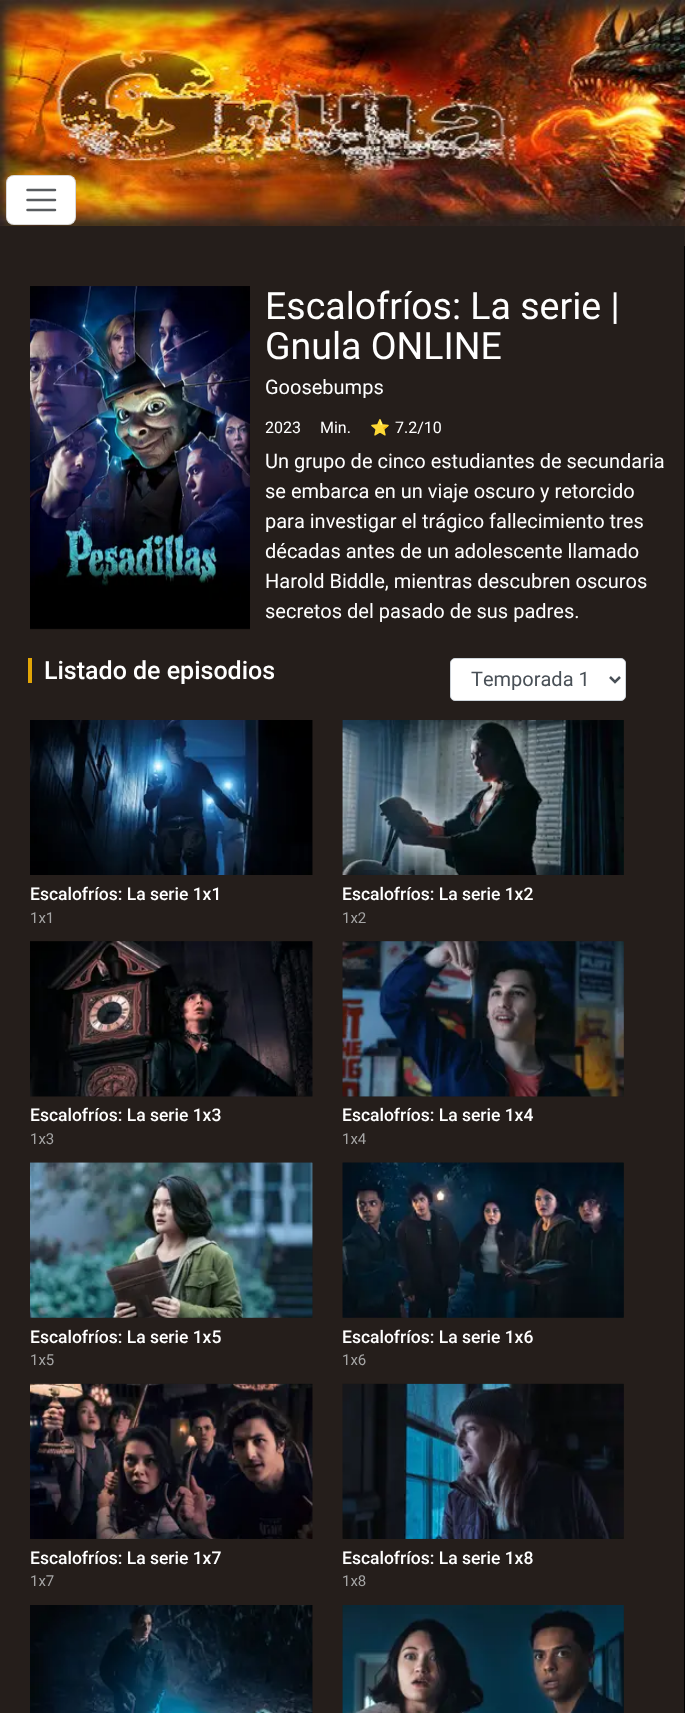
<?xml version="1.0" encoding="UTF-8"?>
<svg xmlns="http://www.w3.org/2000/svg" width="685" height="1713">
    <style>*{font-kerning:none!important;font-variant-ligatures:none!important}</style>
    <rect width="100%" height="100%" fill="#FFFFFF"/>
    <image x="0" y="0" width="685" height="226" href="img_01.png"/>
    <rect x="6" y="175" width="70" height="50" rx="8" fill="#FFFFFF"/>
    <rect x="6.5" y="175.5" width="69" height="49" rx="7.5" fill="none" stroke="#000000" stroke-opacity="0.15"/>
    <path d="M 27.5 190 H 55 M 27.5 200 H 55 M 27.5 210 H 55" fill="none" stroke="#595C5F" stroke-width="2.5" stroke-linecap="round"/>
    <rect x="0" y="226" width="685" height="1487" fill="#251E1B"/>
    <rect x="684" y="246" width="1" height="1467" fill="#000000"/>
    <image x="30" y="286" width="220" height="344" href="img_02.png"/>
    <image x="30" y="286" width="220" height="343" href="img_03.png"/>
    <text font-family="Roboto" font-size="37.5" fill="#FFFFFF">
        <tspan x="265" y="319">Escalofríos: La serie |</tspan>
        <tspan x="265" y="359">Gnula ONLINE</tspan>
    </text>
    <text x="265" y="394" font-family="Roboto" font-size="20" fill="#FFFFFF">Goosebumps</text>
    <text x="265" y="433" font-family="Roboto" font-size="16" fill="#FFFFFF">2023</text>
    <text x="320" y="433" font-family="Roboto" font-size="16" fill="#FFFFFF">Min.</text>
    <text x="370" y="433" font-family="Noto Color Emoji" font-size="16" fill="#FFFFFF">⭐</text>
    <text x="395" y="433" font-family="Roboto" font-size="16" fill="#FFFFFF">7.2/10</text>
    <text font-family="Roboto" font-size="20" fill="#FFFFFF">
        <tspan x="265" y="468">Un grupo de cinco estudiantes de secundaria</tspan>
        <tspan x="265" y="498">se embarca en un viaje oscuro y retorcido</tspan>
        <tspan x="265" y="528">para investigar el trágico fallecimiento tres</tspan>
        <tspan x="265" y="558">décadas antes de un adolescente llamado</tspan>
        <tspan x="265" y="588">Harold Biddle, mientras descubren oscuros</tspan>
        <tspan x="265" y="618">secretos del pasado de sus padres.</tspan>
    </text>
    <rect x="28" y="658" width="4" height="25" fill="#E2A506"/>
    <text x="44" y="679" font-family="Roboto" font-size="25" font-weight="500" fill="#FFFFFF">Listado de episodios</text>
    <rect x="450.5" y="658.5" width="175" height="42" rx="4.5" fill="#FFFFFF" stroke="#CED4DA"/>
    <path d="M 610 677 L 615 682 L 620 677" fill="none" stroke="#495057" stroke-width="2.5"/>
    <text x="471" y="686" font-family="Roboto" font-size="20" fill="#495057">Temporada 1</text>
    <image x="30" y="720" width="283" height="155" href="img_04.png"/>
    <image x="312" y="720" width="1" height="155" href="img_05.png"/>
    <text x="30" y="900" font-family="Roboto" font-size="17.5" font-weight="500" fill="#FFFFFF">Escalofríos: La serie 1x1</text>
    <text x="30" y="923" font-family="Roboto" font-size="15" fill="#A5A5A5">1x1</text>
    <image x="342" y="720" width="282" height="155" href="img_06.png"/>
    <image x="342" y="720" width="282" height="155" href="img_07.png"/>
    <text x="342" y="900" font-family="Roboto" font-size="17.5" font-weight="500" fill="#FFFFFF">Escalofríos: La serie 1x2</text>
    <text x="342" y="923" font-family="Roboto" font-size="15" fill="#A5A5A5">1x2</text>
    <image x="30" y="941" width="283" height="156" href="img_08.png"/>
    <image x="30" y="941" width="283" height="156" href="img_09.png"/>
    <text x="30" y="1121" font-family="Roboto" font-size="17.5" font-weight="500" fill="#FFFFFF">Escalofríos: La serie 1x3</text>
    <text x="30" y="1144" font-family="Roboto" font-size="15" fill="#A5A5A5">1x3</text>
    <image x="342" y="941" width="282" height="156" href="img_10.png"/>
    <image x="342" y="941" width="282" height="156" href="img_11.png"/>
    <text x="342" y="1121" font-family="Roboto" font-size="17.5" font-weight="500" fill="#FFFFFF">Escalofríos: La serie 1x4</text>
    <text x="342" y="1144" font-family="Roboto" font-size="15" fill="#A5A5A5">1x4</text>
    <image x="30" y="1162" width="283" height="156" href="img_12.png"/>
    <image x="30" y="1162" width="283" height="156" href="img_13.png"/>
    <text x="30" y="1343" font-family="Roboto" font-size="17.5" font-weight="500" fill="#FFFFFF">Escalofríos: La serie 1x5</text>
    <text x="30" y="1365" font-family="Roboto" font-size="15" fill="#A5A5A5">1x5</text>
    <image x="342" y="1162" width="282" height="156" href="img_14.png"/>
    <image x="342" y="1162" width="282" height="156" href="img_15.png"/>
    <text x="342" y="1343" font-family="Roboto" font-size="17.5" font-weight="500" fill="#FFFFFF">Escalofríos: La serie 1x6</text>
    <text x="342" y="1365" font-family="Roboto" font-size="15" fill="#A5A5A5">1x6</text>
    <image x="30" y="1383" width="283" height="156" href="img_16.png"/>
    <image x="30" y="1383" width="283" height="156" href="img_17.png"/>
    <text x="30" y="1564" font-family="Roboto" font-size="17.5" font-weight="500" fill="#FFFFFF">Escalofríos: La serie 1x7</text>
    <text x="30" y="1586" font-family="Roboto" font-size="15" fill="#A5A5A5">1x7</text>
    <image x="342" y="1383" width="282" height="156" href="img_18.png"/>
    <image x="342" y="1383" width="282" height="156" href="img_19.png"/>
    <text x="342" y="1564" font-family="Roboto" font-size="17.5" font-weight="500" fill="#FFFFFF">Escalofríos: La serie 1x8</text>
    <text x="342" y="1586" font-family="Roboto" font-size="15" fill="#A5A5A5">1x8</text>
    <image x="30" y="1605" width="283" height="108" href="img_20.png"/>
    <image x="312" y="1605" width="1" height="108" href="img_21.png"/>
    <image x="342" y="1605" width="282" height="108" href="img_22.png"/>
    <image x="342" y="1605" width="282" height="108" href="img_23.png"/>
</svg>
